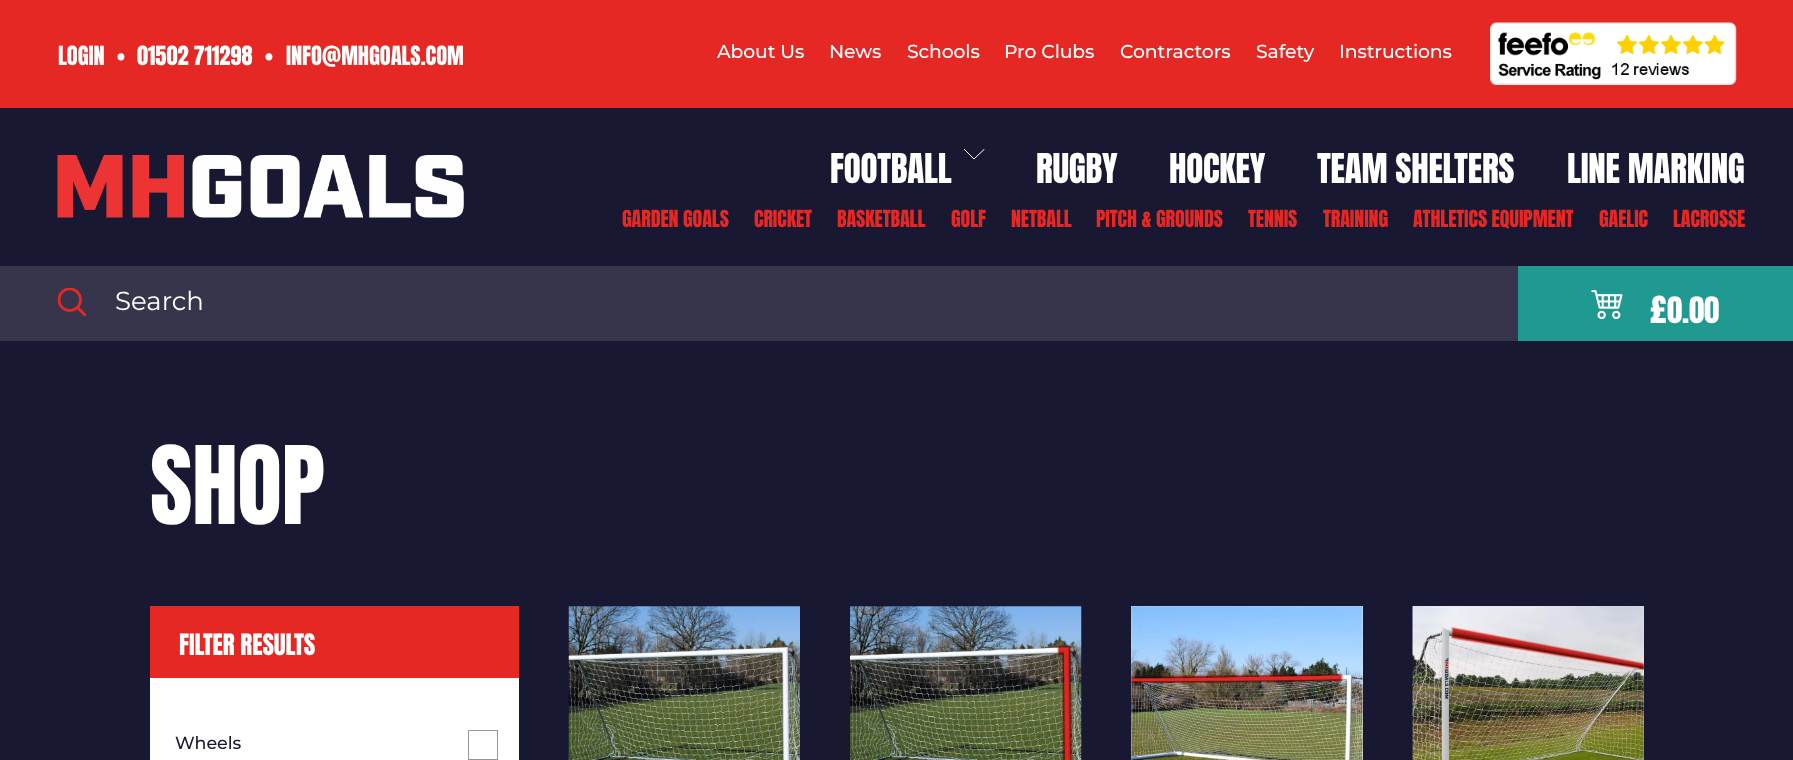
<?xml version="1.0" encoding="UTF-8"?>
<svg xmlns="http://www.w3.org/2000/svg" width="1793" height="760">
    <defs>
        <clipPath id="clip1"><rect x="964" y="149" width="21" height="11"/></clipPath>
    </defs>
    <rect width="100%" height="100%" fill="#181832"/>
    <rect x="0" y="0" width="1793" height="108" fill="#E52824"/>
    <text x="58" y="65" font-family="Anton" font-size="22.5" letter-spacing="-0.1" fill="#FFFFFF">LOGIN</text>
    <text x="117" y="65" font-family="Anton" font-size="22.5" letter-spacing="-0.1" fill="#FFFFFF">•</text>
    <text x="137" y="65" font-family="Anton" font-size="22.5" letter-spacing="-0.1" fill="#FFFFFF">01502 711298</text>
    <text x="265" y="65" font-family="Anton" font-size="22.5" letter-spacing="-0.1" fill="#FFFFFF">•</text>
    <text x="286" y="65" font-family="Anton" font-size="22.5" letter-spacing="-0.1" fill="#FFFFFF">INFO@MHGOALS.COM</text>
    <text x="717" y="58" font-family="Montserrat" font-size="18.75" font-weight="500" letter-spacing="-0.1" fill="#FFFFFF">About Us</text>
    <text x="829" y="58" font-family="Montserrat" font-size="18.75" font-weight="500" letter-spacing="-0.1" fill="#FFFFFF">News</text>
    <text x="907" y="58" font-family="Montserrat" font-size="18.75" font-weight="500" letter-spacing="-0.1" fill="#FFFFFF">Schools</text>
    <text x="1004" y="58" font-family="Montserrat" font-size="18.75" font-weight="500" letter-spacing="-0.1" fill="#FFFFFF">Pro Clubs</text>
    <text x="1120" y="58" font-family="Montserrat" font-size="18.75" font-weight="500" letter-spacing="-0.1" fill="#FFFFFF">Contractors</text>
    <text x="1256" y="58" font-family="Montserrat" font-size="18.75" font-weight="500" letter-spacing="-0.1" fill="#FFFFFF">Safety</text>
    <text x="1339" y="58" font-family="Montserrat" font-size="18.75" font-weight="500" letter-spacing="-0.1" fill="#FFFFFF">Instructions</text>
    <image x="1490" y="22" width="247" height="63" href="img_01.png"/>
    <image x="57" y="155" width="407" height="63" href="img_02.png"/>
    <text x="830" y="183" font-family="Anton" font-size="35" letter-spacing="-0.25" fill="#FFFFFF">FOOTBALL</text>
    <g clip-path="url(#clip1)">
        <path d="M 964 149 L 974 159 L 984.5 149" fill="none" stroke="#FFFFFF"/>
    </g>
    <text x="1036" y="183" font-family="Anton" font-size="35" letter-spacing="-0.25" fill="#FFFFFF">RUGBY</text>
    <text x="1169" y="183" font-family="Anton" font-size="35" letter-spacing="-0.25" fill="#FFFFFF">HOCKEY</text>
    <text x="1317" y="183" font-family="Anton" font-size="35" letter-spacing="-0.25" fill="#FFFFFF">TEAM SHELTERS</text>
    <text x="1567" y="183" font-family="Anton" font-size="35" letter-spacing="-0.25" fill="#FFFFFF">LINE MARKING</text>
    <text x="622" y="227" font-family="Anton" font-size="20" letter-spacing="-0.1" fill="#E52824">GARDEN GOALS</text>
    <text x="754" y="227" font-family="Anton" font-size="20" letter-spacing="-0.1" fill="#E52824">CRICKET</text>
    <text x="837" y="227" font-family="Anton" font-size="20" letter-spacing="-0.1" fill="#E52824">BASKETBALL</text>
    <text x="951" y="227" font-family="Anton" font-size="20" letter-spacing="-0.1" fill="#E52824">GOLF</text>
    <text x="1011" y="227" font-family="Anton" font-size="20" letter-spacing="-0.1" fill="#E52824">NETBALL</text>
    <text x="1096" y="227" font-family="Anton" font-size="20" letter-spacing="-0.1" fill="#E52824">PITCH &amp; GROUNDS</text>
    <text x="1248" y="227" font-family="Anton" font-size="20" letter-spacing="-0.1" fill="#E52824">TENNIS</text>
    <text x="1323" y="227" font-family="Anton" font-size="20" letter-spacing="-0.1" fill="#E52824">TRAINING</text>
    <text x="1413" y="227" font-family="Anton" font-size="20" letter-spacing="-0.1" fill="#E52824">ATHLETICS EQUIPMENT</text>
    <text x="1599" y="227" font-family="Anton" font-size="20" letter-spacing="-0.1" fill="#E52824">GAELIC</text>
    <text x="1673" y="227" font-family="Anton" font-size="20" letter-spacing="-0.1" fill="#E52824">LACROSSE</text>
    <rect x="0" y="266" width="1518" height="75" fill="#36354B"/>
    <image x="58" y="288" width="28" height="28" href="img_03.png"/>
    <text x="115" y="310" font-family="Montserrat" font-size="26" fill="#FFFFFF">Search</text>
    <rect x="1518" y="266" width="275" height="75" fill="#209991"/>
    <image x="1591" y="290" width="32" height="30" href="img_04.png"/>
    <text x="1650" y="323" font-family="Anton" font-size="35" letter-spacing="-0.25" fill="#FFFFFF">£</text>
    <text x="1667" y="323" font-family="Anton" font-size="31" letter-spacing="-0.25" fill="#FFFFFF">0.00</text>
    <text x="150" y="524" font-family="Anton" font-size="92" letter-spacing="-0.5" fill="#FFFFFF">SHOP</text>
    <rect x="150" y="678" width="369" height="82" fill="#FFFFFF"/>
    <rect x="150" y="606" width="369" height="72" fill="#E52824"/>
    <text x="179" y="655" font-family="Anton" font-size="25" letter-spacing="-0.1" fill="#FFFFFF">FILTER RESULTS</text>
    <text x="175" y="749" font-family="Montserrat" font-size="17.5" font-weight="500" letter-spacing="-0.1" fill="#181832">Wheels</text>
    <rect x="468.5" y="730.5" width="29" height="29" fill="none" stroke="#979797"/>
    <image x="568" y="606" width="232" height="154" href="img_05.png"/>
    <image x="850" y="606" width="232" height="154" href="img_06.png"/>
    <rect x="1131" y="606" width="232" height="154" fill="#E4E4E4"/>
    <image x="1131" y="606" width="232" height="154" href="img_07.png"/>
    <rect x="1413" y="606" width="231" height="154" fill="#E4E4E4"/>
    <image x="1412" y="606" width="232" height="154" href="img_08.png"/>
</svg>
